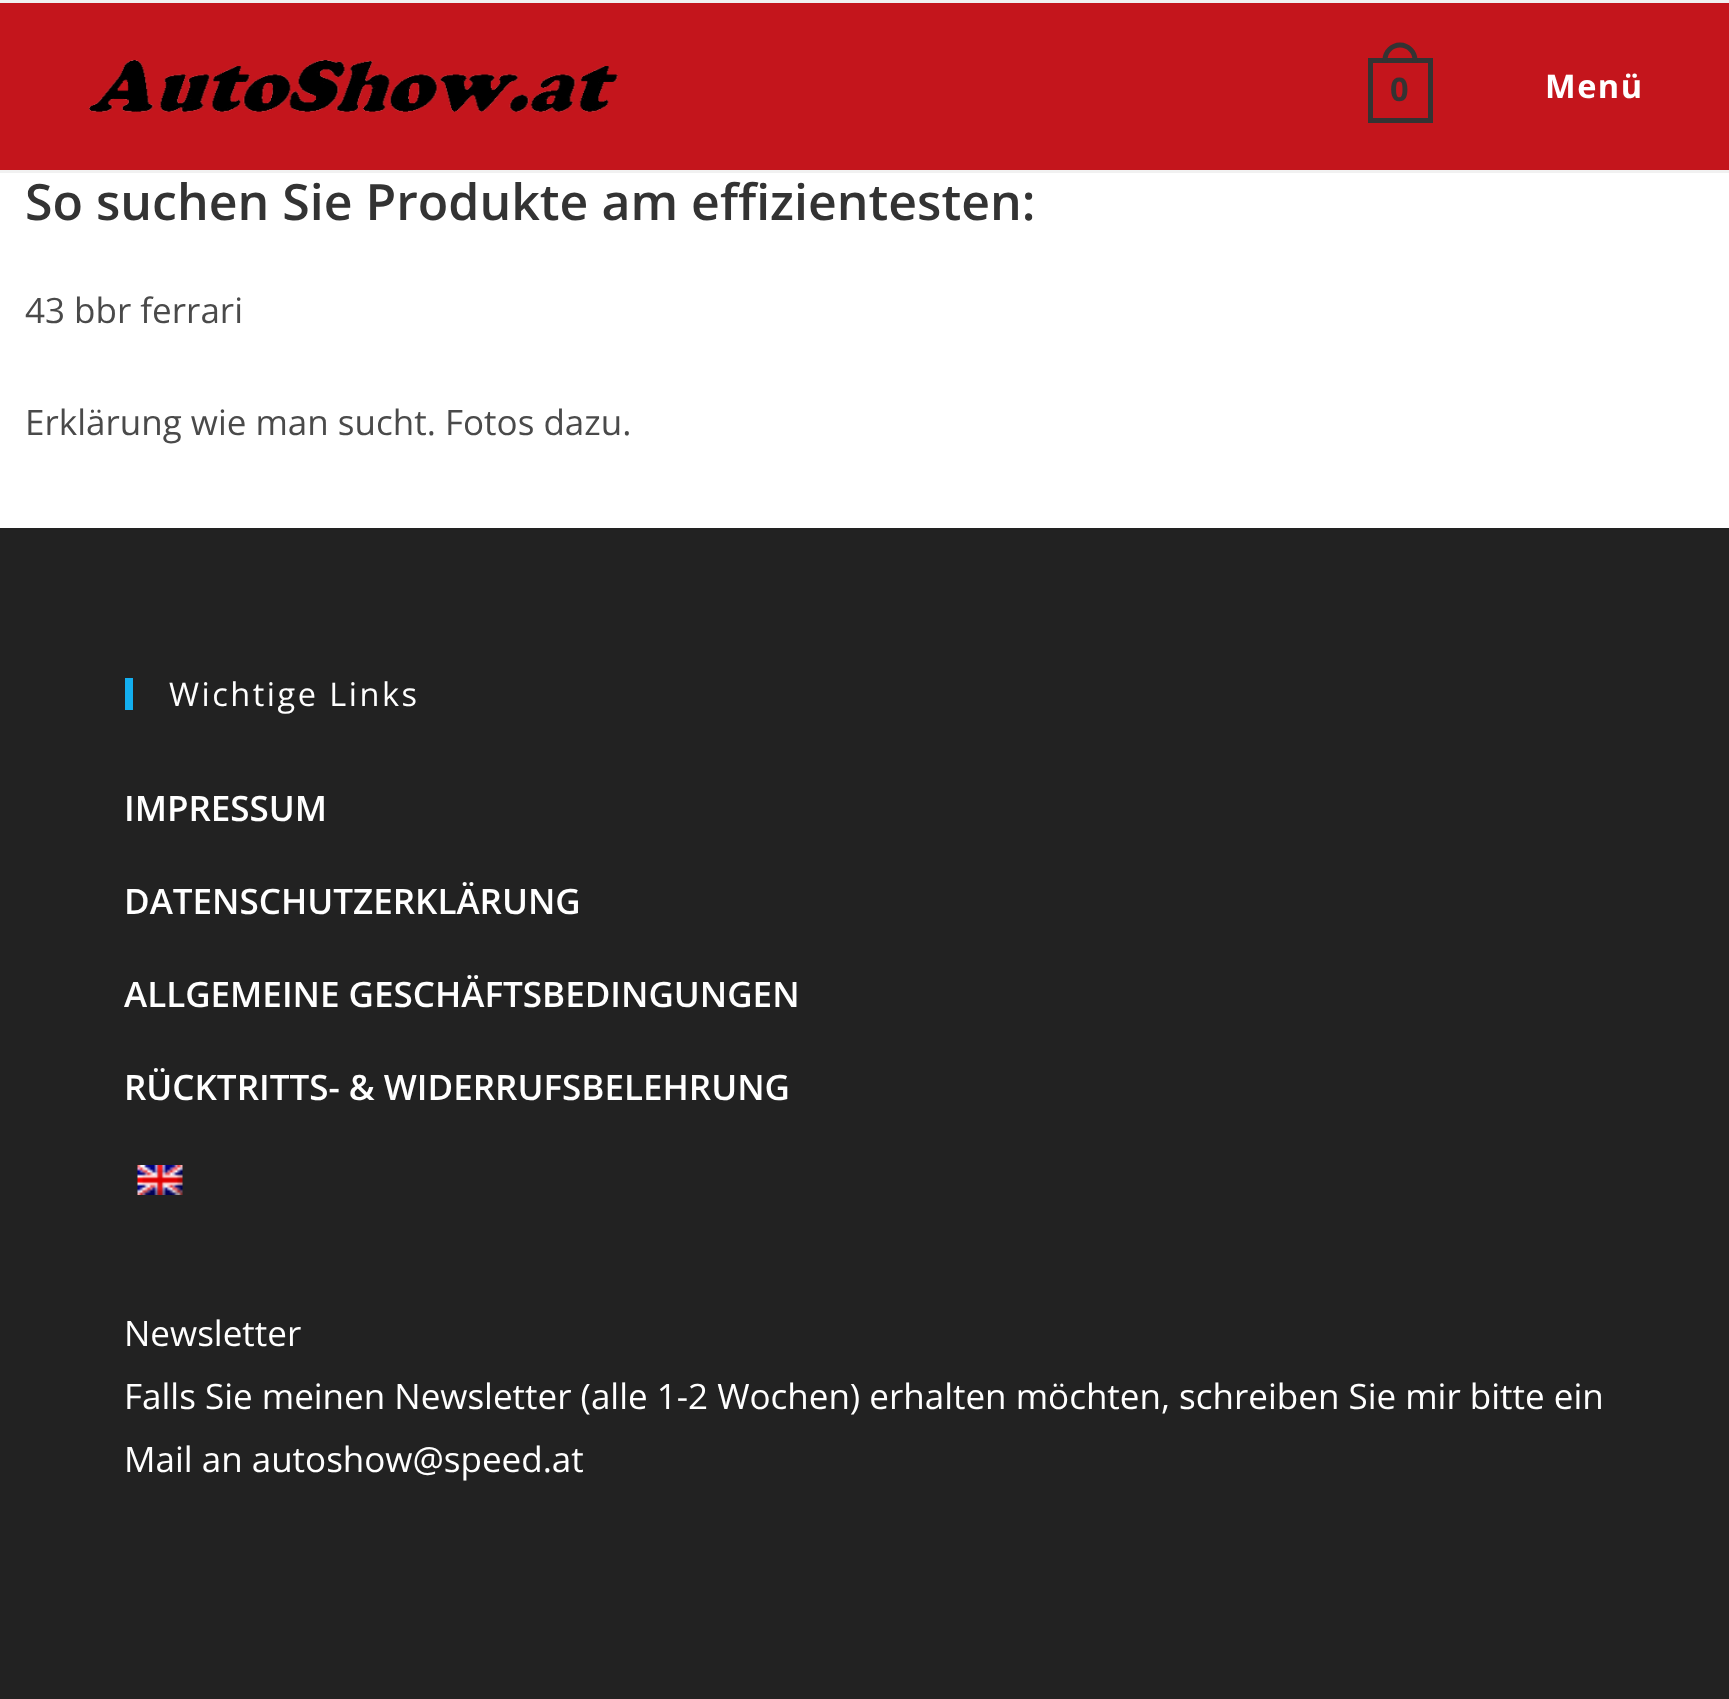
<?xml version="1.0" encoding="UTF-8"?>
<svg xmlns="http://www.w3.org/2000/svg" width="1729" height="1699">
    <rect width="100%" height="100%" fill="#FFFFFF"/>
    <rect x="0" y="0" width="1729" height="3" fill="#F1F1F1"/>
    <rect x="0" y="3" width="1729" height="167" fill="#C4151C"/>
    <rect x="0" y="170" width="1729" height="3" fill="#F1F1F1"/>
    <image x="89" y="60" width="529" height="52" href="img_01.png"/>
    <rect x="1370.5" y="60.5" width="60" height="60" fill="none" stroke="#333333" stroke-width="5"/>
    <path d="M 1400 42.5 C 1409.5 42.5 1417.5 50.5 1417.5 60 V 62.5 H 1382.5 V 60 C 1382.5 50.5 1390.5 42.5 1400 42.5 Z M 1400 47.5 C 1407 47.5 1412.5 53 1412.5 60 V 62.5 H 1387.5 V 60 C 1387.5 53 1393 47.5 1400 47.5 Z" fill="#333333" fill-rule="evenodd"/>
    <text x="1390" y="101" font-family="Open Sans" font-size="32.5" font-weight="700" letter-spacing="1.5" fill="#333333">0</text>
    <text x="1545" y="98" font-family="Open Sans" font-size="32.5" font-weight="700" letter-spacing="1.5" fill="#FFFFFF">Menü</text>
    <text x="25" y="220" font-family="Open Sans" font-size="50" font-weight="600" fill="#333333">So suchen Sie Produkte am effizientesten:</text>
    <text x="25" y="323" font-family="Open Sans" font-size="35" fill="#4A4A4A">43 bbr ferrari</text>
    <text x="25" y="435" font-family="Open Sans" font-size="35" fill="#4A4A4A">Erklärung wie man sucht. Fotos dazu.</text>
    <rect x="0" y="528" width="1729" height="1171" fill="#222222"/>
    <rect x="125" y="678" width="8" height="32" fill="#13AFF0"/>
    <text x="169" y="706" font-family="Open Sans" font-size="32.5" letter-spacing="2.5" fill="#FFFFFF">Wichtige Links</text>
    <text x="124" y="821" font-family="Open Sans" font-size="35" font-weight="600" fill="#FFFFFF">IMPRESSUM</text>
    <text x="124" y="914" font-family="Open Sans" font-size="35" font-weight="600" fill="#FFFFFF">DATENSCHUTZERKLÄRUNG</text>
    <text x="124" y="1007" font-family="Open Sans" font-size="35" font-weight="600" fill="#FFFFFF">ALLGEMEINE GESCHÄFTSBEDINGUNGEN</text>
    <text x="124" y="1100" font-family="Open Sans" font-size="35" font-weight="600" fill="#FFFFFF">RÜCKTRITTS- &amp; WIDERRUFSBELEHRUNG</text>
    <image x="137" y="1165" width="46" height="30" href="img_02.png"/>
    <text font-family="Open Sans" font-size="35" fill="#FFFFFF">
        <tspan x="124" y="1346">Newsletter</tspan>
        <tspan x="124" y="1409">Falls Sie meinen Newsletter (alle 1-2 Wochen) erhalten möchten, schreiben Sie mir bitte ein</tspan>
        <tspan x="124" y="1472">Mail an autoshow@speed.at</tspan>
    </text>
</svg>
